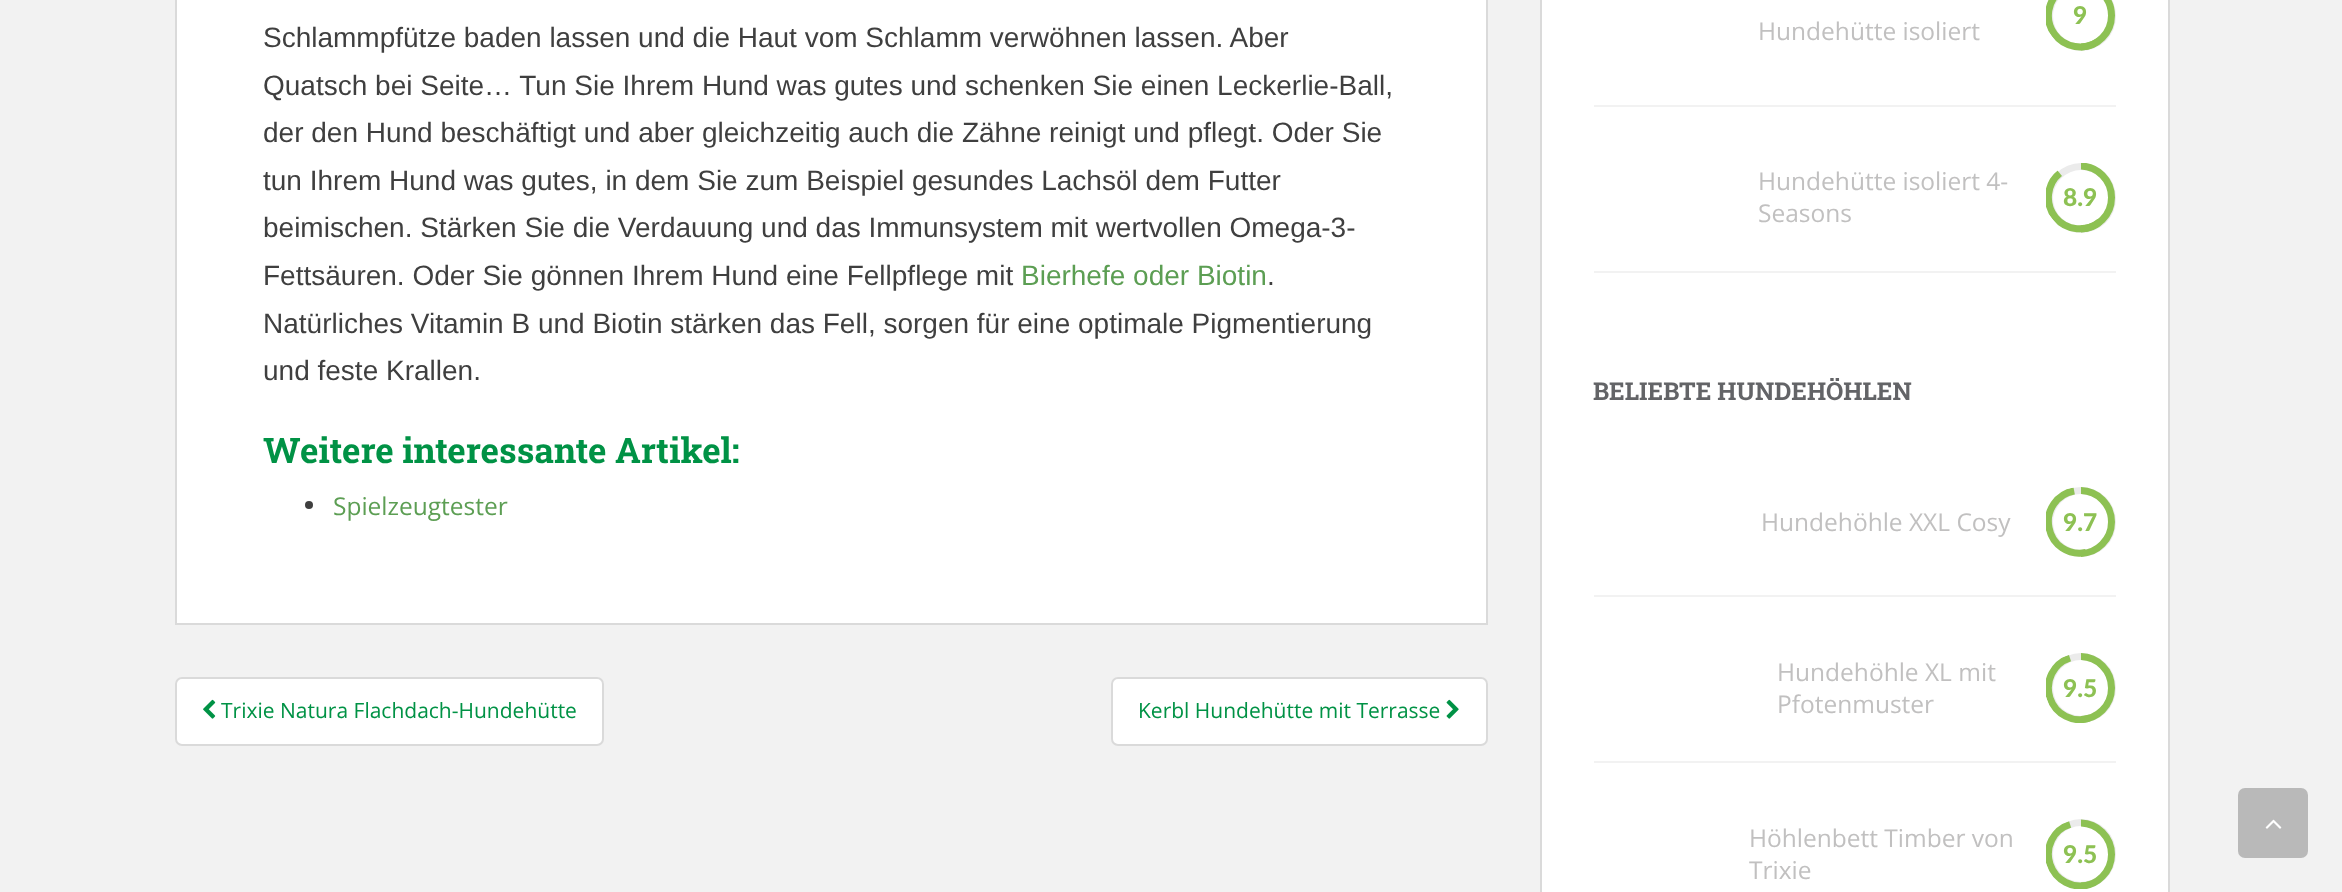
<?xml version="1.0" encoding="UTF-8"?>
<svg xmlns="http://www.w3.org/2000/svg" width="2342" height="892">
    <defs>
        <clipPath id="clip1"><rect x="2046" y="0" width="70" height="51"/></clipPath>
        <clipPath id="clip2"><path d="M 2031 7.5 L 2059.5 -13 L 2100.5 43.5 L 2072 64.5 Z"/></clipPath>
        <clipPath id="clip3"><rect x="2081" y="0" width="35" height="51"/></clipPath>
        <clipPath id="clip4"><rect x="2046" y="163" width="70" height="70"/></clipPath>
        <clipPath id="clip5"><path d="M 2030.5 192.5 L 2057.5 170.5 L 2102 224.5 L 2075 246.5 Z"/></clipPath>
        <clipPath id="clip6"><rect x="2081" y="163" width="35" height="70"/></clipPath>
        <clipPath id="clip7"><rect x="2046" y="487" width="70" height="70"/></clipPath>
        <clipPath id="clip8"><path d="M 2039 494 L 2073.5 487.5 L 2086.5 556 L 2052 562.5 Z"/></clipPath>
        <clipPath id="clip9"><rect x="2081" y="487" width="35" height="70"/></clipPath>
        <clipPath id="clip10"><rect x="2046" y="653" width="70" height="70"/></clipPath>
        <clipPath id="clip11"><path d="M 2036 665.5 L 2069 655 L 2090.5 721.5 L 2057.5 732 Z"/></clipPath>
        <clipPath id="clip12"><rect x="2081" y="653" width="35" height="70"/></clipPath>
        <clipPath id="clip13"><rect x="2046" y="819" width="70" height="70"/></clipPath>
        <clipPath id="clip14"><path d="M 2036 832 L 2069 821 L 2090.5 887.5 L 2057.5 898.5 Z"/></clipPath>
        <clipPath id="clip15"><rect x="2081" y="819" width="35" height="70"/></clipPath>
    </defs>
    <rect width="100%" height="100%" fill="#F2F2F2"/>
    <rect x="176" y="-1" width="1311" height="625" fill="#FFFFFF" stroke="#DADADA" stroke-width="2"/>
    <text font-family="Liberation Sans" font-size="28" fill="#3F3F3F">
        <tspan x="263" y="47">Schlammpfütze baden lassen und die Haut vom Schlamm verwöhnen lassen. Aber</tspan>
        <tspan x="263" y="95">Quatsch bei Seite… Tun Sie Ihrem Hund was gutes und schenken Sie einen Leckerlie-Ball,</tspan>
        <tspan x="263" y="142">der den Hund beschäftigt und aber gleichzeitig auch die Zähne reinigt und pflegt. Oder Sie</tspan>
        <tspan x="263" y="190">tun Ihrem Hund was gutes, in dem Sie zum Beispiel gesundes Lachsöl dem Futter</tspan>
        <tspan x="263" y="237">beimischen. Stärken Sie die Verdauung und das Immunsystem mit wertvollen Omega-3-</tspan>
        <tspan x="263" y="285">Fettsäuren. Oder Sie gönnen Ihrem Hund eine Fellpflege mit</tspan>
    </text>
    <text x="1021" y="285" font-family="Liberation Sans" font-size="28" fill="#5C9E53">Bierhefe oder Biotin</text>
    <text x="1267" y="285" font-family="Liberation Sans" font-size="28" fill="#3F3F3F">.</text>
    <text font-family="Liberation Sans" font-size="28" fill="#3F3F3F">
        <tspan x="263" y="333">Natürliches Vitamin B und Biotin stärken das Fell, sorgen für eine optimale Pigmentierung</tspan>
        <tspan x="263" y="380">und feste Krallen.</tspan>
    </text>
    <text x="263" y="463" font-family="Roboto Slab" font-size="35" font-weight="700" fill="#009245">Weitere interessante Artikel:</text>
    <circle cx="309" cy="505" r="4" fill="#3F3F3F"/>
    <text x="333" y="515" font-family="Open Sans" font-size="24.5" fill="#5C9E53">Spielzeugtester</text>
    <rect x="176" y="678" width="427" height="67" rx="6" fill="#FFFFFF" stroke="#DADADA" stroke-width="2"/>
    <image x="203" y="699" width="13" height="20" href="img_01.png"/>
    <text x="221" y="718" font-family="Open Sans" font-size="21" fill="#009245">Trixie Natura Flachdach-Hundehütte</text>
    <rect x="1112" y="678" width="375" height="67" rx="6" fill="#FFFFFF" stroke="#DADADA" stroke-width="2"/>
    <text x="1138" y="718" font-family="Open Sans" font-size="21" fill="#009245">Kerbl Hundehütte mit Terrasse</text>
    <image x="1446" y="699" width="13" height="20" href="img_02.png"/>
    <rect x="1541" y="-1" width="628" height="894" fill="#FFFFFF" stroke="#DADADA" stroke-width="2"/>
    <rect x="1594" y="105" width="522" height="2" fill="#F2F2F2"/>
    <circle cx="2081" cy="16" r="35" fill="#EBEBEB"/>
    <circle cx="2081" cy="16" r="28" fill="#FFFFFF"/>
    <g clip-path="url(#clip1)">
        <g clip-path="url(#clip2)">
            <path d="M 2061.5 -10 C 2075.5 -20.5 2095 -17 2105.5 -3 C 2115.5 11 2112.5 30.5 2098.5 41 C 2084.5 51 2064.5 48 2054.5 34 C 2044 20 2047.5 0 2061.5 -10 Z" fill="none" stroke="#8DC153" stroke-width="7"/>
        </g>
    </g>
    <g clip-path="url(#clip3)">
        <path d="M 2080 47 C 2062.5 47 2048.5 33 2048.5 15.5 C 2048.5 -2 2062.5 -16 2080 -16 C 2097.5 -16 2111.5 -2 2111.5 15.5 C 2111.5 33 2097.5 47 2080 47 Z" fill="none" stroke="#8DC153" stroke-width="7"/>
    </g>
    <text x="2073" y="24" font-family="Lato" font-size="24.5" font-weight="900" fill="#8DC153">9</text>
    <text x="1758" y="40" font-family="Open Sans" font-size="24.5" fill="#C1C0C0">Hundehütte isoliert</text>
    <rect x="1594" y="271" width="522" height="2" fill="#F2F2F2"/>
    <text font-family="Open Sans" font-size="24.5" fill="#C1C0C0">
        <tspan x="1758" y="190">Hundehütte isoliert 4-</tspan>
        <tspan x="1758" y="222">Seasons</tspan>
    </text>
    <circle cx="2081" cy="198" r="35" fill="#EBEBEB"/>
    <circle cx="2081" cy="198" r="28" fill="#FFFFFF"/>
    <g clip-path="url(#clip4)">
        <g clip-path="url(#clip5)">
            <path d="M 2060 173 C 2073 162 2093 164 2104 177.5 C 2115 190.5 2113.5 210.5 2100 221.5 C 2086.5 232.5 2066.5 231 2055.5 217.5 C 2044.5 204 2046.5 184 2060 173 Z" fill="none" stroke="#8DC153" stroke-width="7"/>
        </g>
    </g>
    <g clip-path="url(#clip6)">
        <path d="M 2080 229 C 2062.5 229 2048.5 215 2048.5 197.5 C 2048.5 180 2062.5 166 2080 166 C 2097.5 166 2111.5 180 2111.5 197.5 C 2111.5 215 2097.5 229 2080 229 Z" fill="none" stroke="#8DC153" stroke-width="7"/>
    </g>
    <text x="2063" y="206" font-family="Lato" font-size="24.5" font-weight="900" fill="#8DC153">8.9</text>
    <text x="1593" y="400" font-family="Roboto Slab" font-size="24.5" font-weight="700" fill="#636467">BELIEBTE HUNDEHÖHLEN</text>
    <rect x="1594" y="595" width="522" height="2" fill="#F2F2F2"/>
    <text x="1761" y="531" font-family="Open Sans" font-size="24.5" fill="#C1C0C0">Hundehöhle XXL Cosy</text>
    <circle cx="2081" cy="522" r="35" fill="#EBEBEB"/>
    <circle cx="2081" cy="522" r="28" fill="#FFFFFF"/>
    <g clip-path="url(#clip7)">
        <g clip-path="url(#clip8)">
            <path d="M 2074 491 C 2091 487.5 2107.5 499 2111 516 C 2114 533 2103 549.5 2086 552.5 C 2068.5 556 2052 545 2049 527.5 C 2045.5 510.5 2057 494 2074 491 Z" fill="none" stroke="#8DC153" stroke-width="7"/>
        </g>
    </g>
    <g clip-path="url(#clip9)">
        <path d="M 2080 553.5 C 2062.5 553.5 2048.5 539 2048.5 522 C 2048.5 504.5 2062.5 490.5 2080 490.5 C 2097.5 490.5 2111.5 504.5 2111.5 522 C 2111.5 539 2097.5 553.5 2080 553.5 Z" fill="none" stroke="#8DC153" stroke-width="7"/>
    </g>
    <text x="2063" y="531" font-family="Lato" font-size="24.5" font-weight="900" fill="#8DC153">9.7</text>
    <rect x="1594" y="761" width="522" height="2" fill="#F2F2F2"/>
    <text font-family="Open Sans" font-size="24.5" fill="#C1C0C0">
        <tspan x="1777" y="681">Hundehöhle XL mit</tspan>
        <tspan x="1777" y="713">Pfotenmuster</tspan>
    </text>
    <circle cx="2081" cy="688" r="35" fill="#EBEBEB"/>
    <circle cx="2081" cy="688" r="28" fill="#FFFFFF"/>
    <g clip-path="url(#clip10)">
        <g clip-path="url(#clip11)">
            <path d="M 2070 658 C 2086.5 652.5 2104.5 662 2110 678.5 C 2115 695 2106 712.5 2089.5 718 C 2073 723.5 2055.5 714.5 2050 698 C 2044.5 681 2053.5 663.5 2070 658 Z" fill="none" stroke="#8DC153" stroke-width="7"/>
        </g>
    </g>
    <g clip-path="url(#clip12)">
        <path d="M 2080 719.5 C 2062.5 719.5 2048.5 705.5 2048.5 688 C 2048.5 670.5 2062.5 656.5 2080 656.5 C 2097.5 656.5 2111.5 670.5 2111.5 688 C 2111.5 705.5 2097.5 719.5 2080 719.5 Z" fill="none" stroke="#8DC153" stroke-width="7"/>
    </g>
    <text x="2063" y="697" font-family="Lato" font-size="24.5" font-weight="900" fill="#8DC153">9.5</text>
    <text font-family="Open Sans" font-size="24.5" fill="#C1C0C0">
        <tspan x="1749" y="847">Höhlenbett Timber von</tspan>
        <tspan x="1749" y="879">Trixie</tspan>
    </text>
    <circle cx="2081" cy="854" r="35" fill="#EBEBEB"/>
    <circle cx="2081" cy="854" r="28" fill="#FFFFFF"/>
    <g clip-path="url(#clip13)">
        <g clip-path="url(#clip14)">
            <path d="M 2070 824.5 C 2086.5 819 2104.5 828 2110 844.5 C 2115 861 2106 879 2089.5 884.5 C 2073 889.5 2055.5 880.5 2050 864 C 2044.5 847.5 2053.5 829.5 2070 824.5 Z" fill="none" stroke="#8DC153" stroke-width="7"/>
        </g>
    </g>
    <g clip-path="url(#clip15)">
        <path d="M 2080 886 C 2062.5 886 2048.5 871.5 2048.5 854.5 C 2048.5 837 2062.5 823 2080 823 C 2097.5 823 2111.5 837 2111.5 854.5 C 2111.5 871.5 2097.5 886 2080 886 Z" fill="none" stroke="#8DC153" stroke-width="7"/>
    </g>
    <text x="2063" y="863" font-family="Lato" font-size="24.5" font-weight="900" fill="#8DC153">9.5</text>
    <rect x="2238" y="788" width="70" height="70" rx="7" fill="#B9B9B9"/>
    <image x="2265" y="819" width="17" height="10" href="img_03.png"/>
</svg>
